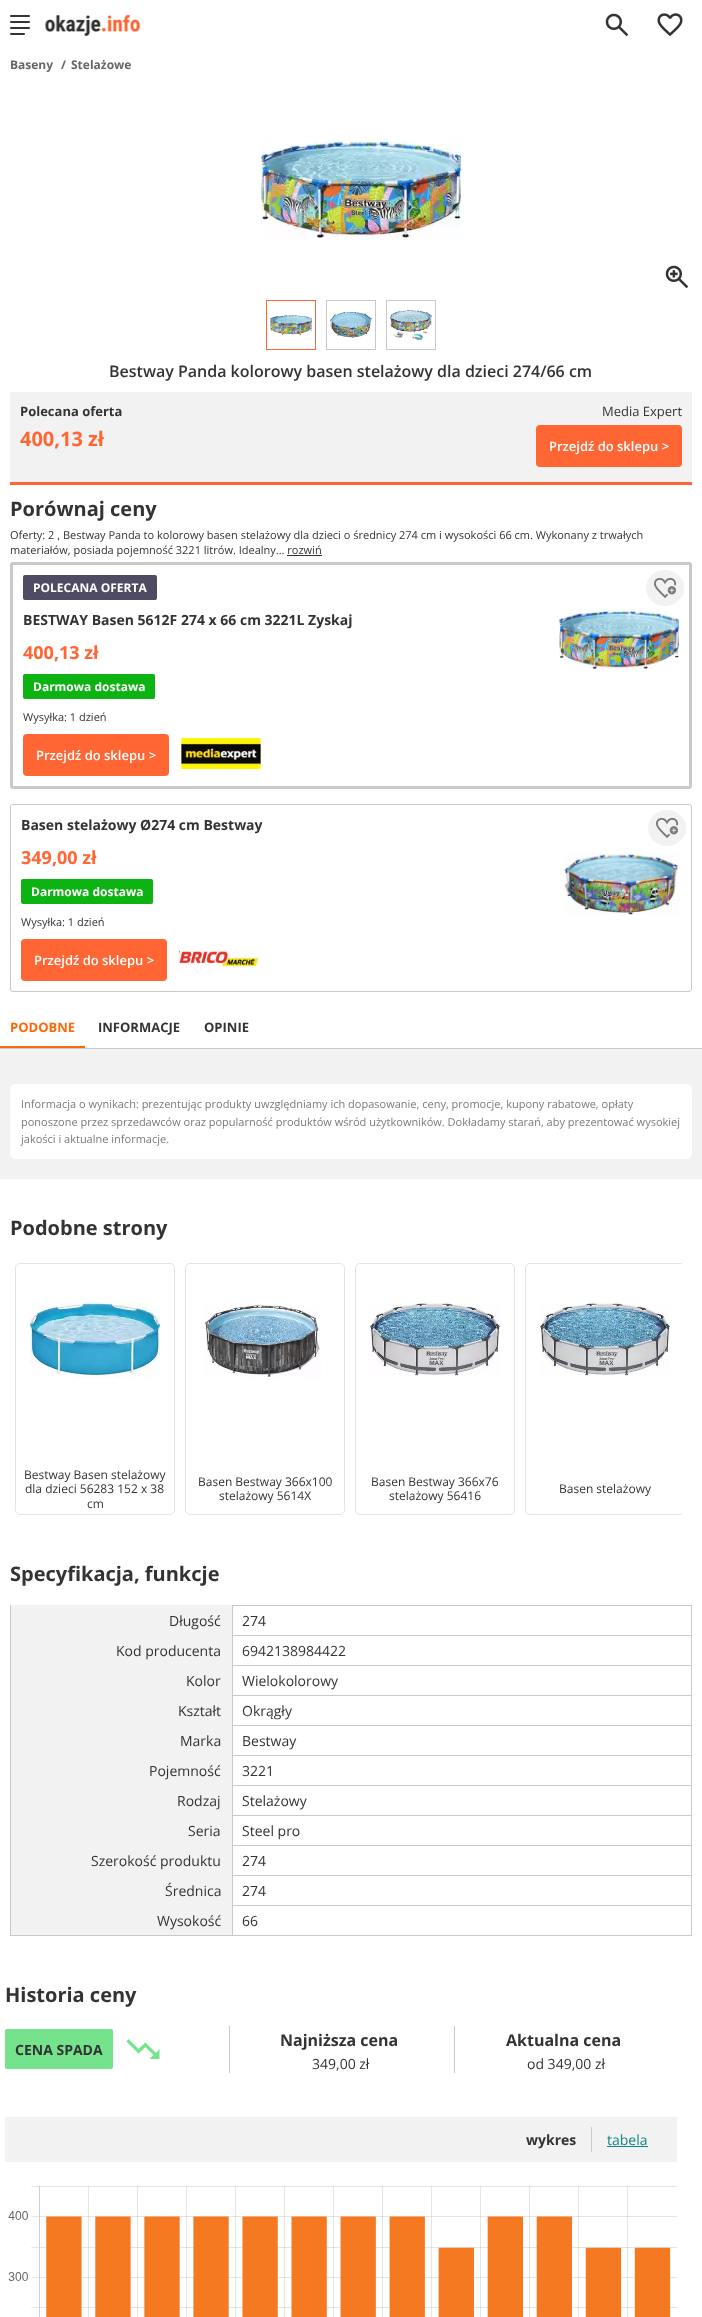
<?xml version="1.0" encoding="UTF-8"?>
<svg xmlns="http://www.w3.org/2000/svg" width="702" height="2317">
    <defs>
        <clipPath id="clip1"><rect x="10" y="1258" width="672" height="262"/></clipPath>
        <filter id="blur1" x="-50%" y="-200%" width="200%" height="500%"><feGaussianBlur stdDeviation="0.5"/></filter>
    </defs>
    <rect width="100%" height="100%" fill="#FFFFFF"/>
    <rect x="10" y="15" width="20" height="2" rx="1" fill="#333333"/>
    <rect x="10" y="21" width="20" height="2" rx="1" fill="#333333"/>
    <rect x="10" y="27" width="20" height="2" rx="1" fill="#333333"/>
    <rect x="10" y="33" width="15" height="2" rx="1" fill="#333333"/>
    <image x="44" y="14" width="97" height="22" href="img_01.png"/>
    <image x="605" y="13" width="24" height="24" href="img_02.png"/>
    <image x="657" y="13" width="26" height="24" href="img_03.png"/>
    <text x="10" y="69" font-family="Open Sans" font-size="12" font-weight="700" fill="#666666">Baseny</text>
    <text x="61" y="69" font-family="Open Sans" font-size="12" font-weight="700" fill="#666666">/</text>
    <text x="71" y="69" font-family="Open Sans" font-size="12" font-weight="700" fill="#666666">Stelażowe</text>
    <image x="261" y="138" width="200" height="102" href="img_04.png"/>
    <image x="665" y="265" width="24" height="24" href="img_05.png"/>
    <rect x="266.5" y="300.5" width="49" height="49" fill="none" stroke="#FF6633"/>
    <image x="270" y="315" width="42" height="20" href="img_06.png"/>
    <rect x="326.5" y="300.5" width="49" height="49" fill="none" stroke="#C9C9C9"/>
    <image x="330" y="311" width="42" height="27" href="img_07.png"/>
    <rect x="386.5" y="300.5" width="49" height="49" fill="none" stroke="#C9C9C9"/>
    <image x="390" y="310" width="42" height="30" href="img_08.png"/>
    <text x="109" y="377" font-family="Open Sans" font-size="16" font-weight="600" fill="#333333">Bestway Panda kolorowy basen stelażowy dla dzieci 274/66 cm</text>
    <rect x="10" y="392" width="682" height="90" fill="#F2F2F2"/>
    <rect x="10" y="482" width="682" height="3" fill="#FF6633"/>
    <text x="20" y="416" font-family="Open Sans" font-size="13" font-weight="700" fill="#333333">Polecana oferta</text>
    <text x="602" y="416" font-family="Open Sans" font-size="13" fill="#333333">Media Expert</text>
    <text x="20" y="446" font-family="Open Sans" font-size="20" font-weight="700" fill="#FF6633">400,13 zł</text>
    <rect x="536" y="425" width="146" height="42" rx="4" fill="#FF6633"/>
    <text x="549" y="451" font-family="Open Sans" font-size="13" font-weight="600" fill="#FFFFFF">Przejdź do sklepu &gt;</text>
    <text x="10" y="516" font-family="Open Sans" font-size="20" font-weight="700" fill="#333333">Porównaj ceny</text>
    <text font-family="Open Sans" font-size="11" fill="#333333">
        <tspan x="10" y="539">Oferty: 2 , Bestway Panda to kolorowy basen stelażowy dla dzieci o średnicy 274 cm i wysokości 66 cm. Wykonany z trwałych</tspan>
        <tspan x="10" y="554">materiałów, posiada pojemność 3221 litrów. Idealny... rozwiń</tspan>
    </text>
    <rect x="287" y="555" width="35" height="1" fill="#333333"/>
    <rect x="11.5" y="563.5" width="679" height="224" rx="1.5" fill="none" stroke="#C9C9C9" stroke-width="3"/>
    <rect x="23" y="575" width="134" height="25" rx="2" fill="#4E4B62"/>
    <text x="33" y="592" font-family="Open Sans" font-size="12" font-weight="700" fill="#FFFFFF">POLECANA OFERTA</text>
    <ellipse cx="665" cy="588" rx="19" ry="18" fill="#F2F2F2"/>
    <image x="654" y="577" width="22" height="21" href="img_09.png"/>
    <text x="23" y="625" font-family="Open Sans" font-size="14" font-weight="700" fill="#333333">BESTWAY Basen 5612F 274 x 66 cm 3221L Zyskaj</text>
    <image x="559" y="608" width="120" height="62" href="img_10.png"/>
    <text x="23" y="659" font-family="Open Sans" font-size="18" font-weight="700" fill="#FF6633">400,13 zł</text>
    <rect x="23" y="674" width="132" height="25" rx="2" fill="#0CB313"/>
    <text x="33" y="691" font-family="Open Sans" font-size="12" font-weight="700" fill="#FFFFFF">Darmowa dostawa</text>
    <text x="23" y="721" font-family="Open Sans" font-size="11" fill="#333333">Wysyłka: 1 dzień</text>
    <rect x="23" y="734" width="146" height="42" rx="4" fill="#FF6633"/>
    <text x="36" y="760" font-family="Open Sans" font-size="13" font-weight="600" fill="#FFFFFF">Przejdź do sklepu &gt;</text>
    <image x="181" y="738" width="80" height="31" href="img_11.png"/>
    <rect x="10.5" y="804.5" width="681" height="187" rx="2.5" fill="none" stroke="#C9C9C9"/>
    <text x="21" y="830" font-family="Open Sans" font-size="14" font-weight="700" fill="#333333">Basen stelażowy Ø274 cm Bestway</text>
    <ellipse cx="667" cy="828" rx="19" ry="18" fill="#F2F2F2"/>
    <image x="656" y="817" width="22" height="21" href="img_09.png"/>
    <text x="21" y="864" font-family="Open Sans" font-size="18" font-weight="700" fill="#FF6633">349,00 zł</text>
    <image x="564" y="853" width="115" height="62" href="img_12.png"/>
    <rect x="21" y="879" width="132" height="25" rx="2" fill="#0CB313"/>
    <text x="31" y="896" font-family="Open Sans" font-size="12" font-weight="700" fill="#FFFFFF">Darmowa dostawa</text>
    <text x="21" y="926" font-family="Open Sans" font-size="11" fill="#333333">Wysyłka: 1 dzień</text>
    <rect x="21" y="939" width="146" height="42" rx="4" fill="#FF6633"/>
    <text x="34" y="965" font-family="Open Sans" font-size="13" font-weight="600" fill="#FFFFFF">Przejdź do sklepu &gt;</text>
    <image x="179" y="950" width="80" height="17" href="img_13.png"/>
    <rect x="0" y="1046" width="85" height="2" fill="#FF6606"/>
    <text x="10" y="1032" font-family="Open Sans" font-size="13" font-weight="700" fill="#FF6606">PODOBNE</text>
    <text x="98" y="1032" font-family="Open Sans" font-size="13" font-weight="700" fill="#333333">INFORMACJE</text>
    <text x="204" y="1032" font-family="Open Sans" font-size="13" font-weight="700" fill="#333333">OPINIE</text>
    <rect x="0" y="1049" width="702" height="130" fill="#F2F2F2"/>
    <rect x="0" y="1048" width="702" height="1" fill="#C9C9C9"/>
    <rect x="10.5" y="1084.5" width="681" height="74" rx="4.5" fill="#FFFFFF" stroke="#FFFFFF"/>
    <text font-family="Open Sans" font-size="11" fill="#7B7B7B">
        <tspan x="21" y="1108">Informacja o wynikach: prezentując produkty uwzględniamy ich dopasowanie, ceny, promocje, kupony rabatowe, opłaty</tspan>
        <tspan x="21" y="1126">ponoszone przez sprzedawców oraz popularność produktów wśród użytkowników. Dokładamy starań, aby prezentować wysokiej</tspan>
        <tspan x="21" y="1143">jakości i aktualne informacje.</tspan>
    </text>
    <text x="10" y="1235" font-family="Open Sans" font-size="20" font-weight="700" fill="#333333">Podobne strony</text>
    <rect x="15.5" y="1263.5" width="159" height="251" rx="4.5" fill="none" stroke="#E4E4E4"/>
    <image x="30" y="1301" width="130" height="77" href="img_14.png"/>
    <text x="24" y="1479" font-family="Open Sans" font-size="12" fill="#333333">Bestway Basen stelażowy</text>
    <text x="25" y="1493" font-family="Open Sans" font-size="12" fill="#333333">dla dzieci 56283 152 x 38</text>
    <text x="87" y="1508" font-family="Open Sans" font-size="12" fill="#333333">cm</text>
    <rect x="185.5" y="1263.5" width="159" height="251" rx="4.5" fill="none" stroke="#E4E4E4"/>
    <image x="204" y="1305" width="117" height="74" href="img_15.png"/>
    <text x="198" y="1486" font-family="Open Sans" font-size="12" fill="#333333">Basen Bestway 366x100</text>
    <text x="219" y="1500" font-family="Open Sans" font-size="12" fill="#333333">stelażowy 5614X</text>
    <rect x="355.5" y="1263.5" width="159" height="251" rx="4.5" fill="none" stroke="#E4E4E4"/>
    <image x="370" y="1302" width="130" height="75" href="img_16.png"/>
    <text x="371" y="1486" font-family="Open Sans" font-size="12" fill="#333333">Basen Bestway 366x76</text>
    <text x="389" y="1500" font-family="Open Sans" font-size="12" fill="#333333">stelażowy 56416</text>
    <g clip-path="url(#clip1)">
        <rect x="525.5" y="1263.5" width="159" height="251" rx="4.5" fill="none" stroke="#E4E4E4"/>
    </g>
    <image x="540" y="1302" width="130" height="75" href="img_17.png"/>
    <text x="559" y="1493" font-family="Open Sans" font-size="12" fill="#333333">Basen stelażowy</text>
    <text x="10" y="1581" font-family="Open Sans" font-size="20" font-weight="700" fill="#333333">Specyfikacja, funkcje</text>
    <rect x="231" y="1605" width="461" height="1" fill="#C9C9C9"/>
    <rect x="231" y="1635" width="461" height="1" fill="#C9C9C9"/>
    <rect x="232" y="1605" width="1" height="60" fill="#C9C9C9"/>
    <rect x="11" y="1605" width="221" height="30" fill="#F2F2F2"/>
    <text x="169" y="1626" font-family="Open Sans" font-size="14" fill="#333333">Długość</text>
    <rect x="231" y="1665" width="461" height="1" fill="#C9C9C9"/>
    <rect x="231" y="1695" width="461" height="1" fill="#C9C9C9"/>
    <rect x="231" y="1725" width="461" height="1" fill="#C9C9C9"/>
    <rect x="231" y="1755" width="461" height="1" fill="#C9C9C9"/>
    <rect x="231" y="1785" width="461" height="1" fill="#C9C9C9"/>
    <rect x="231" y="1815" width="461" height="1" fill="#C9C9C9"/>
    <rect x="231" y="1845" width="461" height="1" fill="#C9C9C9"/>
    <rect x="231" y="1875" width="461" height="1" fill="#C9C9C9"/>
    <rect x="231" y="1905" width="461" height="1" fill="#C9C9C9"/>
    <rect x="691" y="1905" width="1" height="31" fill="#C9C9C9"/>
    <rect x="691" y="1875" width="1" height="31" fill="#C9C9C9"/>
    <rect x="691" y="1845" width="1" height="31" fill="#C9C9C9"/>
    <rect x="691" y="1815" width="1" height="31" fill="#C9C9C9"/>
    <rect x="691" y="1785" width="1" height="31" fill="#C9C9C9"/>
    <rect x="691" y="1755" width="1" height="31" fill="#C9C9C9"/>
    <rect x="691" y="1725" width="1" height="31" fill="#C9C9C9"/>
    <rect x="691" y="1695" width="1" height="31" fill="#C9C9C9"/>
    <rect x="691" y="1665" width="1" height="31" fill="#C9C9C9"/>
    <rect x="691" y="1635" width="1" height="31" fill="#C9C9C9"/>
    <rect x="691" y="1605" width="1" height="31" fill="#C9C9C9"/>
    <text x="242" y="1626" font-family="Open Sans" font-size="14" fill="#333333">274</text>
    <rect x="10" y="1935" width="682" height="1" fill="#C9C9C9"/>
    <rect x="10" y="1605" width="1" height="331" fill="#C9C9C9"/>
    <rect x="11" y="1635" width="221" height="30" fill="#C9C9C9" filter="url(#blur1)"/>
    <rect x="11" y="1635" width="221" height="30" fill="#F2F2F2"/>
    <text x="116" y="1656" font-family="Open Sans" font-size="14" fill="#333333">Kod producenta</text>
    <text x="242" y="1656" font-family="Open Sans" font-size="14" fill="#333333">6942138984422</text>
    <rect x="232" y="1665" width="1" height="30" fill="#C9C9C9"/>
    <rect x="11" y="1665" width="221" height="30" fill="#C9C9C9" filter="url(#blur1)"/>
    <rect x="11" y="1665" width="221" height="30" fill="#F2F2F2"/>
    <text x="186" y="1686" font-family="Open Sans" font-size="14" fill="#333333">Kolor</text>
    <text x="242" y="1686" font-family="Open Sans" font-size="14" fill="#333333">Wielokolorowy</text>
    <rect x="232" y="1695" width="1" height="30" fill="#C9C9C9"/>
    <rect x="11" y="1695" width="221" height="30" fill="#C9C9C9" filter="url(#blur1)"/>
    <rect x="11" y="1695" width="221" height="30" fill="#F2F2F2"/>
    <text x="178" y="1716" font-family="Open Sans" font-size="14" fill="#333333">Kształt</text>
    <text x="242" y="1716" font-family="Open Sans" font-size="14" fill="#333333">Okrągły</text>
    <rect x="232" y="1725" width="1" height="30" fill="#C9C9C9"/>
    <rect x="11" y="1725" width="221" height="30" fill="#C9C9C9" filter="url(#blur1)"/>
    <rect x="11" y="1725" width="221" height="30" fill="#F2F2F2"/>
    <text x="180" y="1746" font-family="Open Sans" font-size="14" fill="#333333">Marka</text>
    <text x="242" y="1746" font-family="Open Sans" font-size="14" fill="#333333">Bestway</text>
    <rect x="232" y="1755" width="1" height="30" fill="#C9C9C9"/>
    <rect x="11" y="1755" width="221" height="30" fill="#C9C9C9" filter="url(#blur1)"/>
    <rect x="11" y="1755" width="221" height="30" fill="#F2F2F2"/>
    <text x="149" y="1776" font-family="Open Sans" font-size="14" fill="#333333">Pojemność</text>
    <text x="242" y="1776" font-family="Open Sans" font-size="14" fill="#333333">3221</text>
    <rect x="232" y="1785" width="1" height="30" fill="#C9C9C9"/>
    <rect x="11" y="1785" width="221" height="30" fill="#C9C9C9" filter="url(#blur1)"/>
    <rect x="11" y="1785" width="221" height="30" fill="#F2F2F2"/>
    <text x="177" y="1806" font-family="Open Sans" font-size="14" fill="#333333">Rodzaj</text>
    <text x="242" y="1806" font-family="Open Sans" font-size="14" fill="#333333">Stelażowy</text>
    <rect x="232" y="1815" width="1" height="30" fill="#C9C9C9"/>
    <rect x="11" y="1815" width="221" height="30" fill="#C9C9C9" filter="url(#blur1)"/>
    <rect x="11" y="1815" width="221" height="30" fill="#F2F2F2"/>
    <text x="188" y="1836" font-family="Open Sans" font-size="14" fill="#333333">Seria</text>
    <text x="242" y="1836" font-family="Open Sans" font-size="14" fill="#333333">Steel pro</text>
    <rect x="232" y="1845" width="1" height="30" fill="#C9C9C9"/>
    <rect x="11" y="1845" width="221" height="30" fill="#C9C9C9" filter="url(#blur1)"/>
    <rect x="11" y="1845" width="221" height="30" fill="#F2F2F2"/>
    <text x="91" y="1866" font-family="Open Sans" font-size="14" fill="#333333">Szerokość produktu</text>
    <text x="242" y="1866" font-family="Open Sans" font-size="14" fill="#333333">274</text>
    <rect x="232" y="1875" width="1" height="30" fill="#C9C9C9"/>
    <rect x="11" y="1875" width="221" height="30" fill="#C9C9C9" filter="url(#blur1)"/>
    <rect x="11" y="1875" width="221" height="30" fill="#F2F2F2"/>
    <text x="165" y="1896" font-family="Open Sans" font-size="14" fill="#333333">Średnica</text>
    <text x="242" y="1896" font-family="Open Sans" font-size="14" fill="#333333">274</text>
    <rect x="232" y="1905" width="1" height="30" fill="#C9C9C9"/>
    <rect x="11" y="1905" width="221" height="30" fill="#C9C9C9" filter="url(#blur1)"/>
    <rect x="11" y="1905" width="221" height="30" fill="#F2F2F2"/>
    <text x="157" y="1926" font-family="Open Sans" font-size="14" fill="#333333">Wysokość</text>
    <text x="242" y="1926" font-family="Open Sans" font-size="14" fill="#333333">66</text>
    <text x="5" y="2002" font-family="Open Sans" font-size="20" font-weight="700" fill="#333333">Historia ceny</text>
    <rect x="5" y="2029" width="108" height="40" rx="2" fill="#74E38C"/>
    <text x="15" y="2055" font-family="Open Sans" font-size="14" font-weight="700" fill="#333333">CENA SPADA</text>
    <path d="M 149.5 2059 L 153.5 2055 L 145.5 2047 L 138.5 2053.5 L 126.5 2041.5 L 128.5 2039 L 138.5 2049 L 145.5 2042.5 L 156 2053 L 159.5 2049 V 2059 Z" fill="#74E38C"/>
    <rect x="229" y="2026" width="1" height="47" fill="#C9C9C9"/>
    <text x="280" y="2046" font-family="Open Sans" font-size="16" font-weight="700" fill="#333333">Najniższa cena</text>
    <text x="312" y="2069" font-family="Open Sans" font-size="14" fill="#333333">349,00 zł</text>
    <rect x="454" y="2026" width="1" height="47" fill="#C9C9C9"/>
    <text x="506" y="2046" font-family="Open Sans" font-size="16" font-weight="700" fill="#333333">Aktualna cena</text>
    <text x="527" y="2069" font-family="Open Sans" font-size="14" fill="#333333">od 349,00 zł</text>
    <rect x="5" y="2117" width="672" height="45" fill="#F2F2F2"/>
    <rect x="591" y="2127" width="1" height="25" fill="#CCCCCC"/>
    <text x="526" y="2145" font-family="Open Sans" font-size="14" font-weight="700" fill="#333333">wykres</text>
    <text x="607" y="2145" font-family="Open Sans" font-size="14" fill="#108784">tabela</text>
    <rect x="607" y="2146" width="41" height="1" fill="#108784"/>
    <image x="8" y="2186" width="669" height="131" href="img_18.png"/>
</svg>
